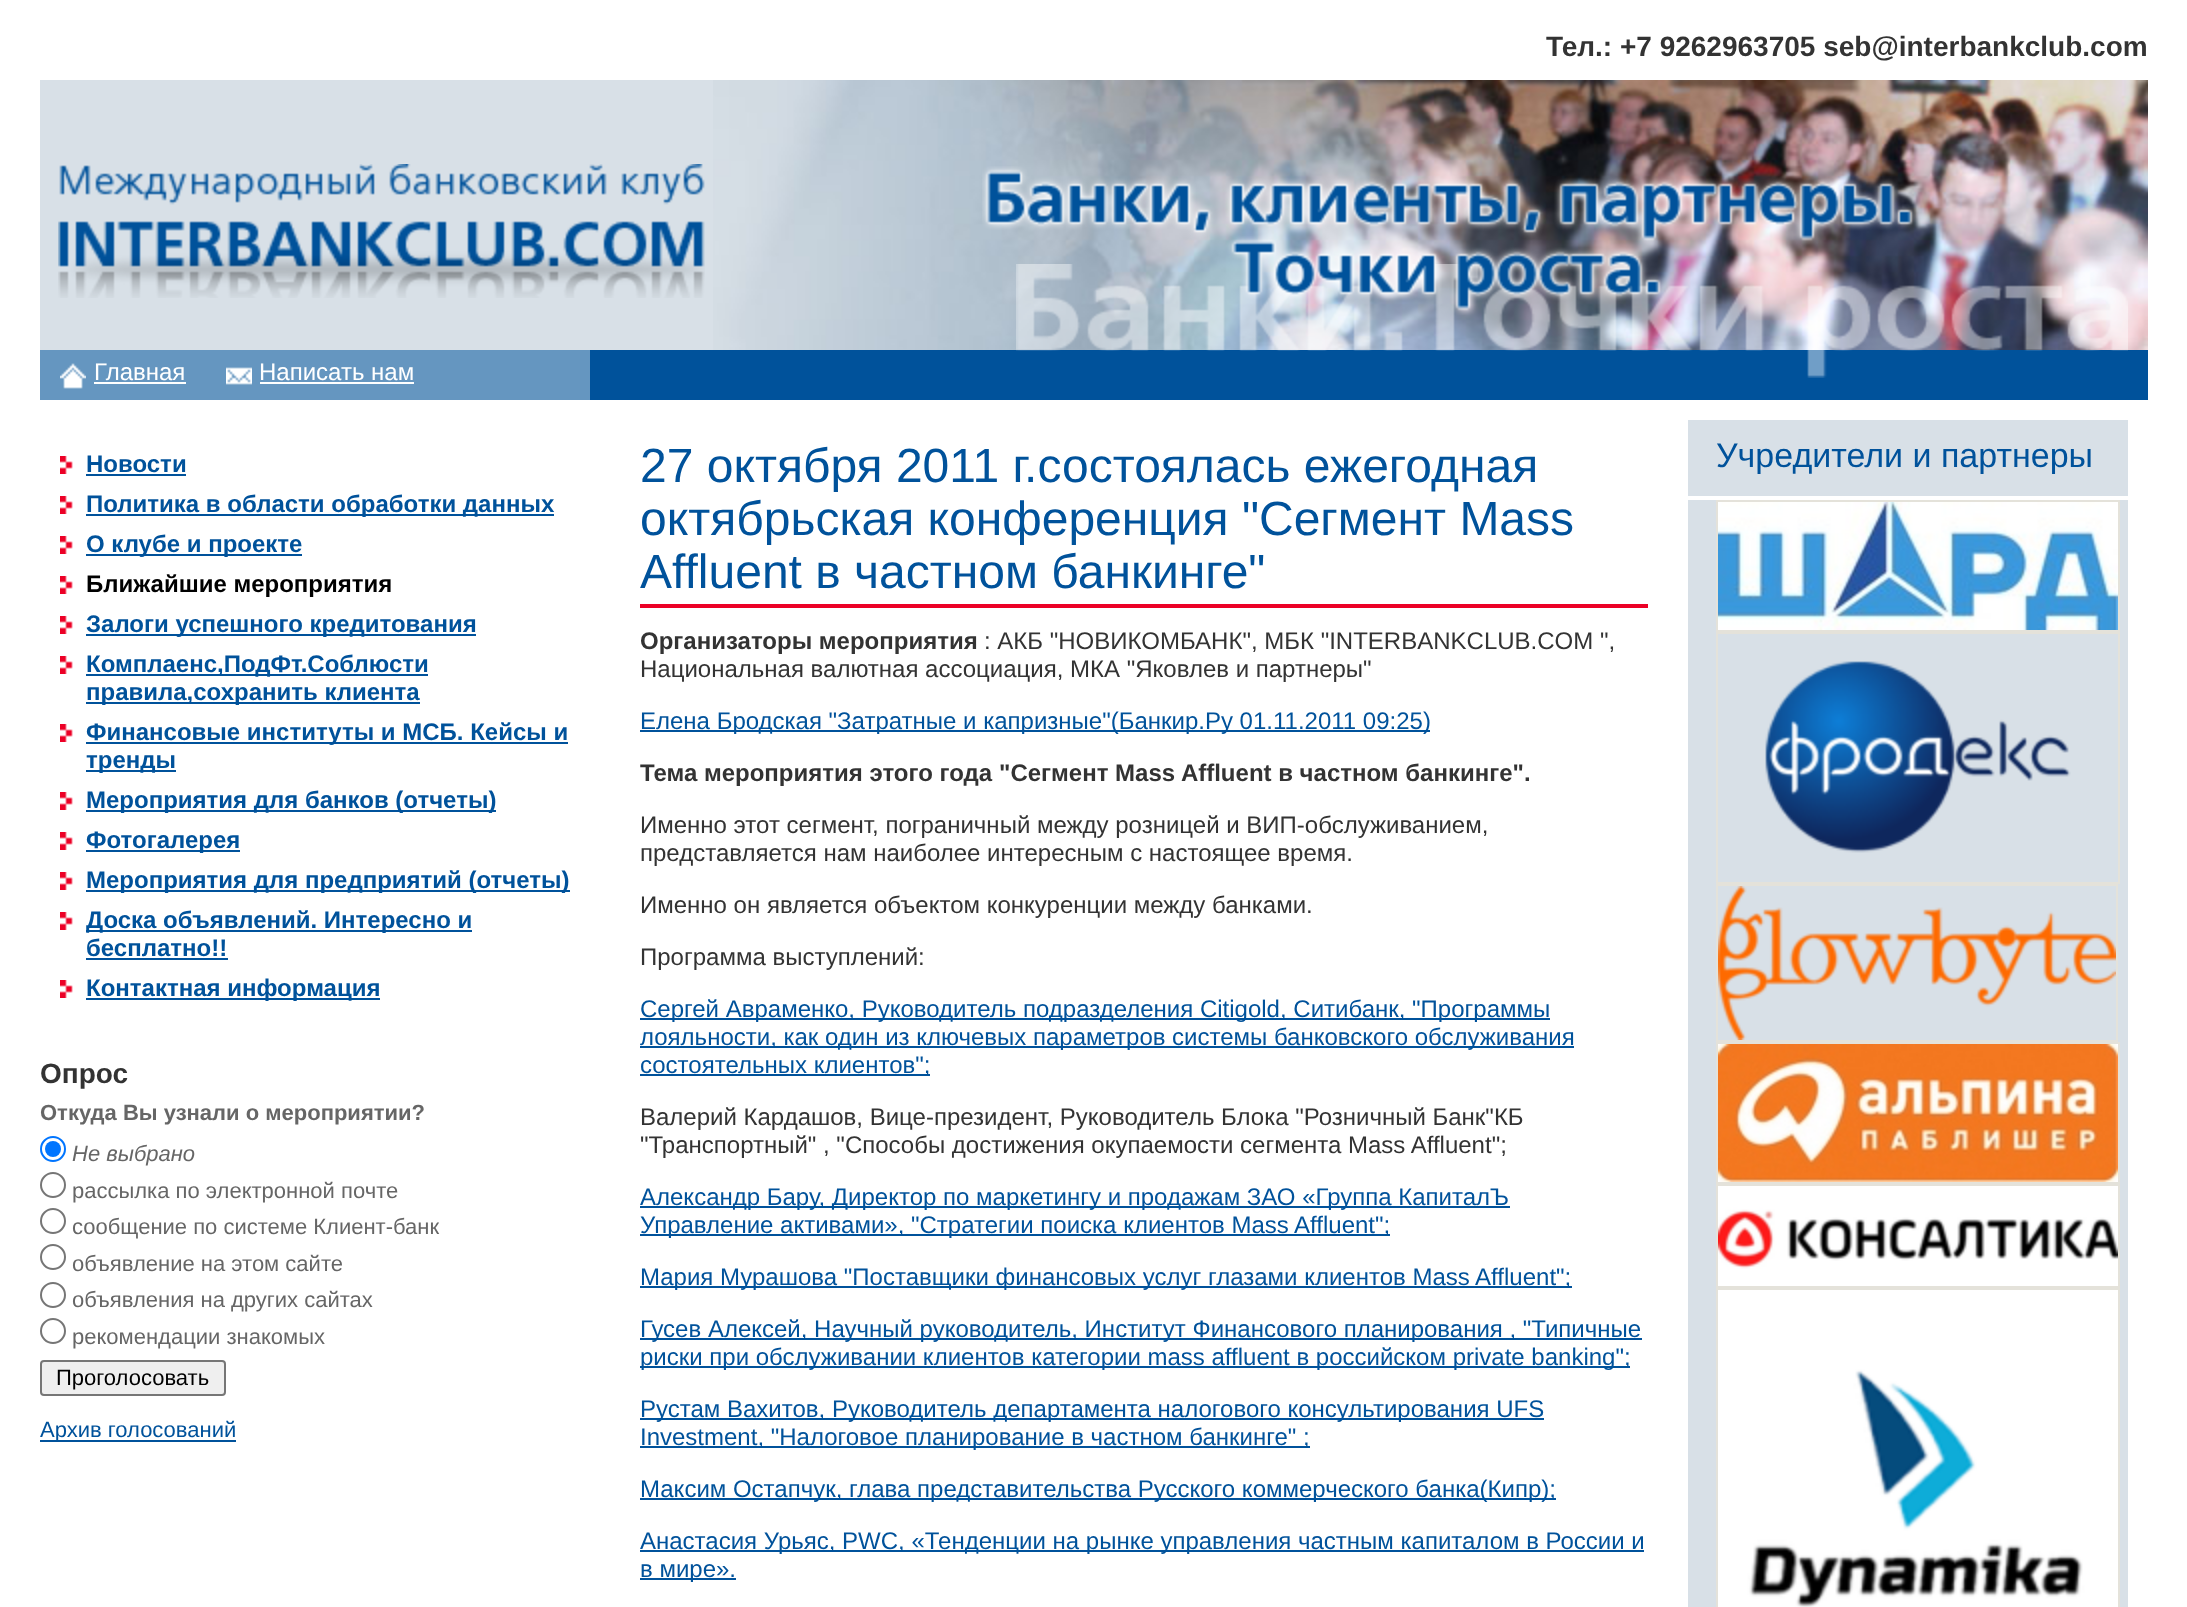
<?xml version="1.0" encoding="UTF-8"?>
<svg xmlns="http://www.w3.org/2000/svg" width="2187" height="1607">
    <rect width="100%" height="100%" fill="#FFFFFF"/>
    <rect x="40" y="80" width="673" height="270" fill="#D8E0E7"/>
    <image x="713" y="80" width="1435" height="270" href="img_01.png"/>
    <text x="1546" y="56" font-family="Liberation Sans" font-size="28" font-weight="700" fill="#333333">Тел.: +7 9262963705 seb@interbankclub.com</text>
    <image x="58" y="164" width="647" height="134" href="img_02.png"/>
    <rect x="590" y="350" width="1558" height="50" fill="#00529B"/>
    <image x="1016" y="264" width="1112" height="114" href="img_04.png"/>
    <image x="982" y="166" width="935" height="149" href="img_03.png"/>
    <rect x="40" y="350" width="550" height="50" fill="#6596C0"/>
    <image x="60" y="363" width="26" height="26" href="img_05.png"/>
    <text x="94" y="380" font-family="Liberation Sans" font-size="24" fill="#FFFFFF">Главная</text>
    <rect x="94" y="382" width="92" height="2" fill="#FFFFFF"/>
    <image x="226" y="367" width="26" height="18" href="img_06.png"/>
    <text x="259" y="380" font-family="Liberation Sans" font-size="24" fill="#FFFFFF">Написать нам</text>
    <rect x="260" y="382" width="154" height="2" fill="#FFFFFF"/>
    <image x="60" y="456" width="13" height="18" href="img_07.png"/>
    <text x="86" y="472" font-family="Liberation Sans" font-size="24" font-weight="700" fill="#00529B">Новости</text>
    <rect x="86" y="474" width="100" height="2" fill="#00529B"/>
    <image x="60" y="496" width="13" height="18" href="img_07.png"/>
    <rect x="86" y="514" width="468" height="2" fill="#00529B"/>
    <text x="86" y="512" font-family="Liberation Sans" font-size="24" font-weight="700" fill="#00529B">Политика в области обработки данных</text>
    <image x="60" y="536" width="13" height="18" href="img_07.png"/>
    <rect x="86" y="554" width="216" height="2" fill="#00529B"/>
    <text x="86" y="552" font-family="Liberation Sans" font-size="24" font-weight="700" fill="#00529B">О клубе и проекте</text>
    <image x="60" y="576" width="13" height="18" href="img_07.png"/>
    <text x="86" y="592" font-family="Liberation Sans" font-size="24" font-weight="700" fill="#000000">Ближайшие мероприятия</text>
    <image x="60" y="616" width="13" height="18" href="img_07.png"/>
    <rect x="86" y="634" width="390" height="2" fill="#00529B"/>
    <text x="86" y="632" font-family="Liberation Sans" font-size="24" font-weight="700" fill="#00529B">Залоги успешного кредитования</text>
    <image x="60" y="656" width="13" height="18" href="img_07.png"/>
    <rect x="86" y="674" width="342" height="2" fill="#00529B"/>
    <text x="86" y="672" font-family="Liberation Sans" font-size="24" font-weight="700" fill="#00529B">Комплаенс,ПодФт.Соблюсти</text>
    <rect x="86" y="702" width="334" height="2" fill="#00529B"/>
    <text x="86" y="700" font-family="Liberation Sans" font-size="24" font-weight="700" fill="#00529B">правила,сохранить клиента</text>
    <image x="60" y="724" width="13" height="18" href="img_07.png"/>
    <rect x="86" y="742" width="482" height="2" fill="#00529B"/>
    <text x="86" y="740" font-family="Liberation Sans" font-size="24" font-weight="700" fill="#00529B">Финансовые институты и МСБ. Кейсы и</text>
    <rect x="86" y="770" width="90" height="2" fill="#00529B"/>
    <text x="86" y="768" font-family="Liberation Sans" font-size="24" font-weight="700" fill="#00529B">тренды</text>
    <image x="60" y="792" width="13" height="18" href="img_07.png"/>
    <rect x="86" y="810" width="410" height="2" fill="#00529B"/>
    <text x="86" y="808" font-family="Liberation Sans" font-size="24" font-weight="700" fill="#00529B">Мероприятия для банков (отчеты)</text>
    <image x="60" y="832" width="13" height="18" href="img_07.png"/>
    <rect x="86" y="850" width="154" height="2" fill="#00529B"/>
    <text x="86" y="848" font-family="Liberation Sans" font-size="24" font-weight="700" fill="#00529B">Фотогалерея</text>
    <image x="60" y="872" width="13" height="18" href="img_07.png"/>
    <rect x="86" y="890" width="484" height="2" fill="#00529B"/>
    <text x="86" y="888" font-family="Liberation Sans" font-size="24" font-weight="700" fill="#00529B">Мероприятия для предприятий (отчеты)</text>
    <image x="60" y="912" width="13" height="18" href="img_07.png"/>
    <rect x="86" y="930" width="386" height="2" fill="#00529B"/>
    <text font-family="Liberation Sans" font-size="24" font-weight="700" fill="#00529B">
        <tspan x="86" y="928">Доска объявлений. Интересно и</tspan>
        <tspan x="86" y="956">бесплатно!!</tspan>
    </text>
    <rect x="86" y="958" width="142" height="2" fill="#00529B"/>
    <image x="60" y="980" width="13" height="18" href="img_07.png"/>
    <rect x="86" y="998" width="294" height="2" fill="#00529B"/>
    <text x="86" y="996" font-family="Liberation Sans" font-size="24" font-weight="700" fill="#00529B">Контактная информация</text>
    <text x="40" y="1083" font-family="Liberation Sans" font-size="28" font-weight="700" fill="#333333">Опрос</text>
    <text x="40" y="1120" font-family="Liberation Sans" font-size="22" font-weight="700" fill="#666666">Откуда Вы узнали о мероприятии?</text>
    <circle cx="53" cy="1149" r="12" fill="none" stroke="#0075FF" stroke-width="2"/>
    <circle cx="53" cy="1149" r="8" fill="#0075FF"/>
    <text x="72" y="1161" font-family="Liberation Sans" font-size="22" font-style="italic" fill="#666666">Не выбрано</text>
    <circle cx="53" cy="1185" r="12" fill="none" stroke="#767676" stroke-width="2"/>
    <text x="72" y="1198" font-family="Liberation Sans" font-size="22" fill="#666666">рассылка по электронной почте</text>
    <circle cx="53" cy="1221" r="12" fill="none" stroke="#767676" stroke-width="2"/>
    <text x="72" y="1234" font-family="Liberation Sans" font-size="22" fill="#666666">сообщение по системе Клиент-банк</text>
    <circle cx="53" cy="1257" r="12" fill="none" stroke="#767676" stroke-width="2"/>
    <text x="72" y="1271" font-family="Liberation Sans" font-size="22" fill="#666666">объявление на этом сайте</text>
    <circle cx="53" cy="1295" r="12" fill="none" stroke="#767676" stroke-width="2"/>
    <text x="72" y="1307" font-family="Liberation Sans" font-size="22" fill="#666666">объявления на других сайтах</text>
    <circle cx="53" cy="1331" r="12" fill="none" stroke="#767676" stroke-width="2"/>
    <text x="72" y="1344" font-family="Liberation Sans" font-size="22" fill="#666666">рекомендации знакомых</text>
    <rect x="41" y="1361" width="184" height="34" rx="3" fill="#EFEFEF" stroke="#767676" stroke-width="2"/>
    <text x="56" y="1385" font-family="Liberation Sans" font-size="22" fill="#000000">Проголосовать</text>
    <rect x="40" y="1440" width="196" height="2" fill="#00529B"/>
    <text x="40" y="1437" font-family="Liberation Sans" font-size="22" fill="#00529B">Архив голосований</text>
    <rect x="640" y="604" width="1008" height="4" fill="#EC0026"/>
    <text font-family="Liberation Sans" font-size="48" fill="#00529B">
        <tspan x="640" y="482">27 октября 2011 г.состоялась ежегодная</tspan>
        <tspan x="640" y="535">октябрьская конференция "Сегмент Mass</tspan>
        <tspan x="640" y="588">Affluent в частном банкинге"</tspan>
    </text>
    <text x="640" y="649" font-family="Liberation Sans" font-size="24" font-weight="700" fill="#333333">Организаторы мероприятия</text>
    <text x="984" y="649" font-family="Liberation Sans" font-size="24" fill="#333333">: АКБ "НОВИКОМБАНК", МБК "INTERBANKCLUB.COM ",</text>
    <text x="640" y="677" font-family="Liberation Sans" font-size="24" fill="#333333">Национальная валютная ассоциация, МКА "Яковлев и партнеры"</text>
    <rect x="640" y="730" width="790" height="2" fill="#00529B"/>
    <text x="640" y="729" font-family="Liberation Sans" font-size="24" fill="#00529B">Елена Бродская "Затратные и капризные"(Банкир.Ру 01.11.2011 09:25)</text>
    <text x="640" y="781" font-family="Liberation Sans" font-size="24" font-weight="700" fill="#333333">Тема мероприятия этого года</text>
    <text x="999" y="781" font-family="Liberation Sans" font-size="24" font-weight="700" fill="#333333">"Сегмент Mass Affluent в частном банкинге".</text>
    <text font-family="Liberation Sans" font-size="24" fill="#333333">
        <tspan x="640" y="833">Именно этот сегмент, пограничный между розницей и ВИП-обслуживанием,</tspan>
        <tspan x="640" y="861">представляется нам наиболее интересным с настоящее время.</tspan>
    </text>
    <text x="640" y="913" font-family="Liberation Sans" font-size="24" fill="#333333">Именно он является объектом конкуренции между банками.</text>
    <text x="640" y="965" font-family="Liberation Sans" font-size="24" fill="#333333">Программа выступлений:</text>
    <rect x="640" y="1018" width="910" height="2" fill="#00529B"/>
    <text x="640" y="1017" font-family="Liberation Sans" font-size="24" fill="#00529B">Сергей Авраменко, Руководитель подразделения Citigold, Ситибанк, "Программы</text>
    <rect x="640" y="1046" width="934" height="2" fill="#00529B"/>
    <text x="640" y="1045" font-family="Liberation Sans" font-size="24" fill="#00529B">лояльности, как один из ключевых параметров</text>
    <text x="1172" y="1045" font-family="Liberation Sans" font-size="24" fill="#00529B">системы банковского обслуживания</text>
    <rect x="640" y="1074" width="290" height="2" fill="#00529B"/>
    <text x="640" y="1073" font-family="Liberation Sans" font-size="24" fill="#00529B">состоятельных клиентов";</text>
    <text font-family="Liberation Sans" font-size="24" fill="#333333">
        <tspan x="640" y="1125">Валерий Кардашов, Вице-президент, Руководитель Блока "Розничный Банк"КБ</tspan>
        <tspan x="640" y="1153">"Транспортный" , "Способы достижения окупаемости сегмента Mass Affluent";</tspan>
    </text>
    <rect x="640" y="1206" width="870" height="2" fill="#00529B"/>
    <text x="640" y="1205" font-family="Liberation Sans" font-size="24" fill="#00529B">Александр Бару, Директор по маркетингу и продажам ЗАО «Группа КапиталЪ</text>
    <rect x="640" y="1234" width="750" height="2" fill="#00529B"/>
    <text x="640" y="1233" font-family="Liberation Sans" font-size="24" fill="#00529B">Управление активами», "Стратегии поиска клиентов Mass Affluent";</text>
    <rect x="640" y="1286" width="932" height="2" fill="#00529B"/>
    <text x="640" y="1285" font-family="Liberation Sans" font-size="24" fill="#00529B">Мария Мурашова "Поставщики финансовых услуг глазами клиентов Mass Affluent";</text>
    <rect x="640" y="1338" width="1002" height="2" fill="#00529B"/>
    <text x="640" y="1337" font-family="Liberation Sans" font-size="24" fill="#00529B">Гусев Алексей, Научный руководитель, Институт Финансового планирования , "Типичные</text>
    <rect x="640" y="1366" width="990" height="2" fill="#00529B"/>
    <text x="640" y="1365" font-family="Liberation Sans" font-size="24" fill="#00529B">риски при обслуживании клиентов категории mass affluent в российском private banking";</text>
    <rect x="640" y="1418" width="904" height="2" fill="#00529B"/>
    <text x="640" y="1417" font-family="Liberation Sans" font-size="24" fill="#00529B">Рустам Вахитов, Руководитель департамента налогового консультирования UFS</text>
    <rect x="640" y="1446" width="670" height="2" fill="#00529B"/>
    <text x="640" y="1445" font-family="Liberation Sans" font-size="24" fill="#00529B">Investment, "Налоговое планирование в частном банкинге" ;</text>
    <rect x="640" y="1498" width="916" height="2" fill="#00529B"/>
    <text x="640" y="1497" font-family="Liberation Sans" font-size="24" fill="#00529B">Максим Остапчук, глава представительства Русского коммерческого банка(Кипр);</text>
    <rect x="640" y="1550" width="1004" height="2" fill="#00529B"/>
    <text x="640" y="1549" font-family="Liberation Sans" font-size="24" fill="#00529B">Анастасия Урьяс, PWC, «Тенденции на рынке управления частным капиталом в России и</text>
    <rect x="640" y="1578" width="96" height="2" fill="#00529B"/>
    <text x="640" y="1577" font-family="Liberation Sans" font-size="24" fill="#00529B">в мире».</text>
    <rect x="1688" y="420" width="440" height="76" fill="#D8E0E7"/>
    <text x="1716" y="467" font-family="Liberation Sans" font-size="34" fill="#00529B">Учредители и партнеры</text>
    <rect x="1688" y="500" width="440" height="1107" fill="#D8E0E7"/>
    <rect x="1717" y="501" width="402" height="130" fill="none" stroke="#E4E2DA" stroke-width="2"/>
    <image x="1718" y="502" width="400" height="128" href="img_08.png"/>
    <rect x="1717" y="633" width="402" height="250" fill="none" stroke="#E4E2DA" stroke-width="2"/>
    <image x="1765" y="661" width="306" height="192" href="img_09.png"/>
    <rect x="1717" y="885" width="400" height="156" fill="none" stroke="#E4E2DA" stroke-width="2"/>
    <image x="1718" y="886" width="398" height="154" href="img_10.png"/>
    <rect x="1717" y="1043" width="402" height="140" fill="none" stroke="#E4E2DA" stroke-width="2"/>
    <image x="1718" y="1044" width="400" height="138" href="img_11.png"/>
    <rect x="1717" y="1185" width="402" height="102" fill="none" stroke="#E4E2DA" stroke-width="2"/>
    <image x="1718" y="1186" width="400" height="100" href="img_12.png"/>
    <rect x="1717" y="1289" width="402" height="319" fill="none" stroke="#E4E2DA" stroke-width="2"/>
    <image x="1718" y="1290" width="400" height="317" href="img_13.png"/>
</svg>
